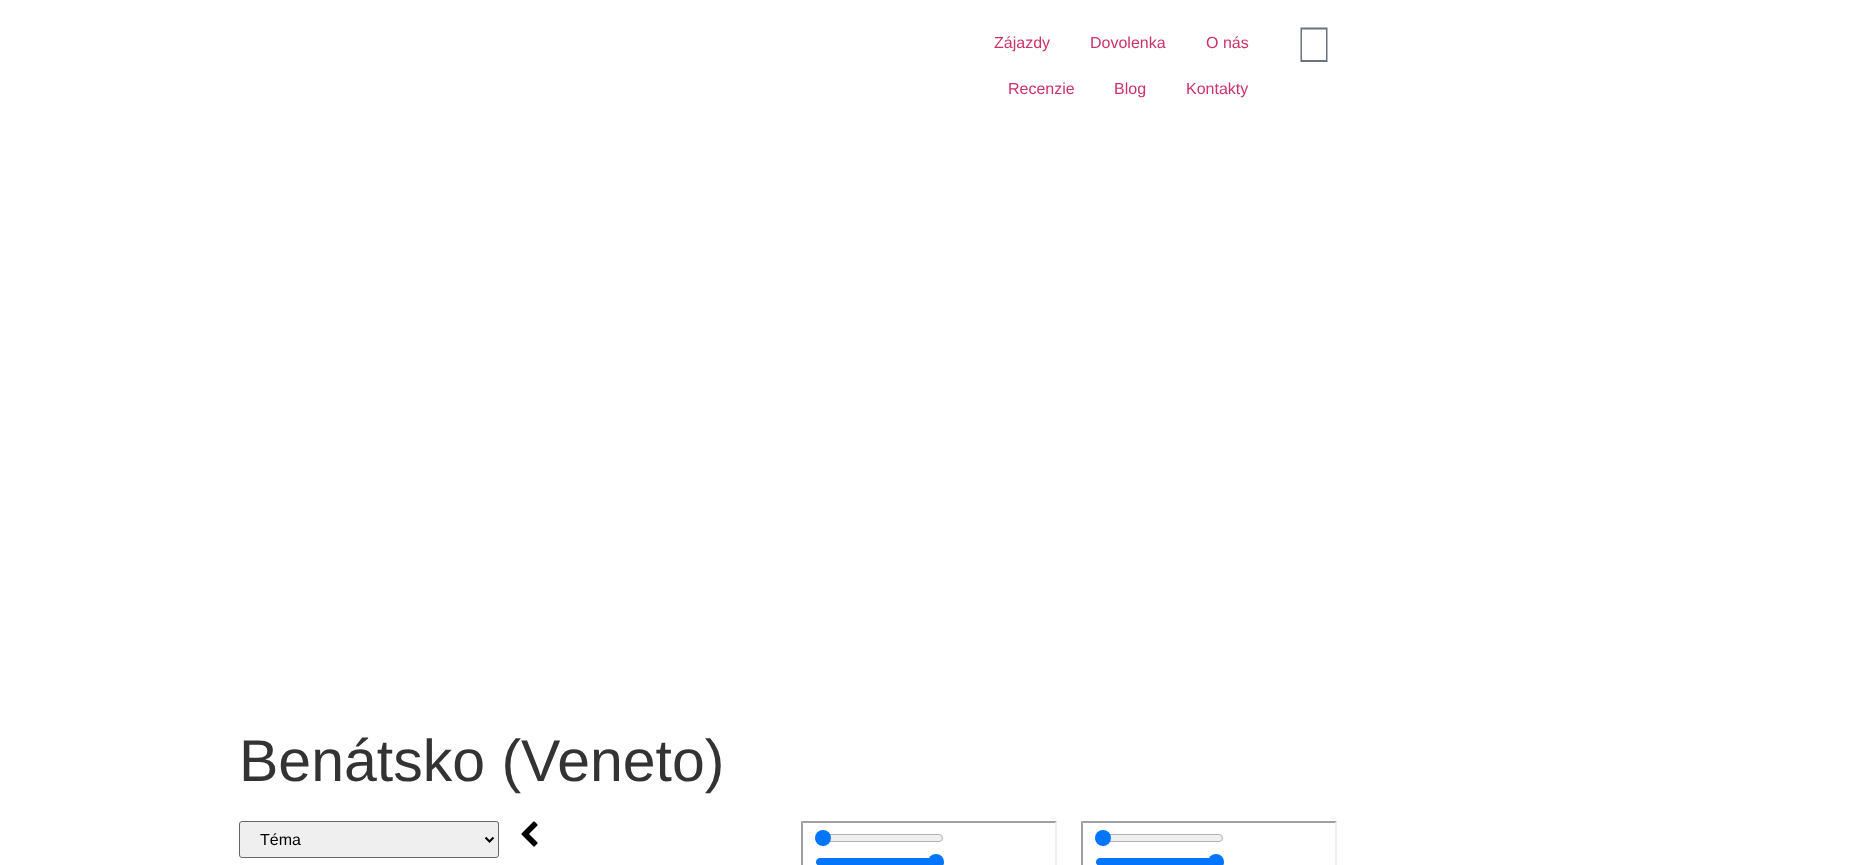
<?xml version="1.0" encoding="UTF-8"?>
<svg xmlns="http://www.w3.org/2000/svg" width="1857" height="865">
    <rect width="100%" height="100%" fill="#FFFFFF"/>
    <text x="994" y="48" font-family="Liberation Sans" font-size="16" fill="#CC3366">Zájazdy</text>
    <text x="1090" y="48" font-family="Liberation Sans" font-size="16" fill="#CC3366">Dovolenka</text>
    <text x="1206" y="48" font-family="Liberation Sans" font-size="16" fill="#CC3366">O nás</text>
    <text x="1008" y="94" font-family="Liberation Sans" font-size="16" fill="#CC3366">Recenzie</text>
    <text x="1114" y="94" font-family="Liberation Sans" font-size="16" fill="#CC3366">Blog</text>
    <text x="1186" y="94" font-family="Liberation Sans" font-size="16" fill="#CC3366">Kontakty</text>
    <path d="M 1300.5 27.5 H 1327.5 V 62 H 1300.5 Z M 1302 29.5 V 60 H 1326 V 29.5 Z" fill="#69727D"/>
    <text x="239" y="781" font-family="Liberation Sans" font-size="59" fill="#333333">Benátsko (Veneto)</text>
    <rect x="239.5" y="821.5" width="259" height="36" rx="2.5" fill="#EFEFEF" stroke="#666666"/>
    <path d="M 485.5 837.5 L 489.5 841.5 L 493.5 837.5" fill="none" stroke="#000000" stroke-width="2"/>
    <text x="260" y="845" font-family="Liberation Sans" font-size="16" fill="#000000">Téma</text>
    <image x="521" y="821" width="17" height="26" href="img_01.png"/>
    <path d="M 801 821 H 1057 L 1055 823 H 803 Z" fill="#9F9F9F"/>
    <path d="M 1057 821 V 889 L 1055 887 V 823 Z" fill="#EFEFEF"/>
    <path d="M 801 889 V 821 L 803 823 V 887 Z" fill="#9F9F9F"/>
    <rect x="816.5" y="834.5" width="126" height="7" rx="3.5" fill="#EFEFEF" stroke="#B2B2B2"/>
    <circle cx="823" cy="838" r="8" fill="#0075FF"/>
    <rect x="816.5" y="858.5" width="126" height="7" rx="3.5" fill="none" stroke="#B2B2B2"/>
    <path d="M 820 858 H 936 V 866 H 820 C 818 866 816 864 816 862 C 816 860 818 858 820 858 Z" fill="#0075FF"/>
    <circle cx="936" cy="862" r="8" fill="#0075FF"/>
    <path d="M 1081 821 H 1337 L 1335 823 H 1083 Z" fill="#9F9F9F"/>
    <path d="M 1337 821 V 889 L 1335 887 V 823 Z" fill="#EFEFEF"/>
    <path d="M 1081 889 V 821 L 1083 823 V 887 Z" fill="#9F9F9F"/>
    <rect x="1096.5" y="834.5" width="126" height="7" rx="3.5" fill="#EFEFEF" stroke="#B2B2B2"/>
    <circle cx="1103" cy="838" r="8" fill="#0075FF"/>
    <rect x="1096.5" y="858.5" width="126" height="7" rx="3.5" fill="none" stroke="#B2B2B2"/>
    <path d="M 1100 858 H 1216 V 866 H 1100 C 1098 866 1096 864 1096 862 C 1096 860 1098 858 1100 858 Z" fill="#0075FF"/>
    <circle cx="1216" cy="862" r="8" fill="#0075FF"/>
</svg>
